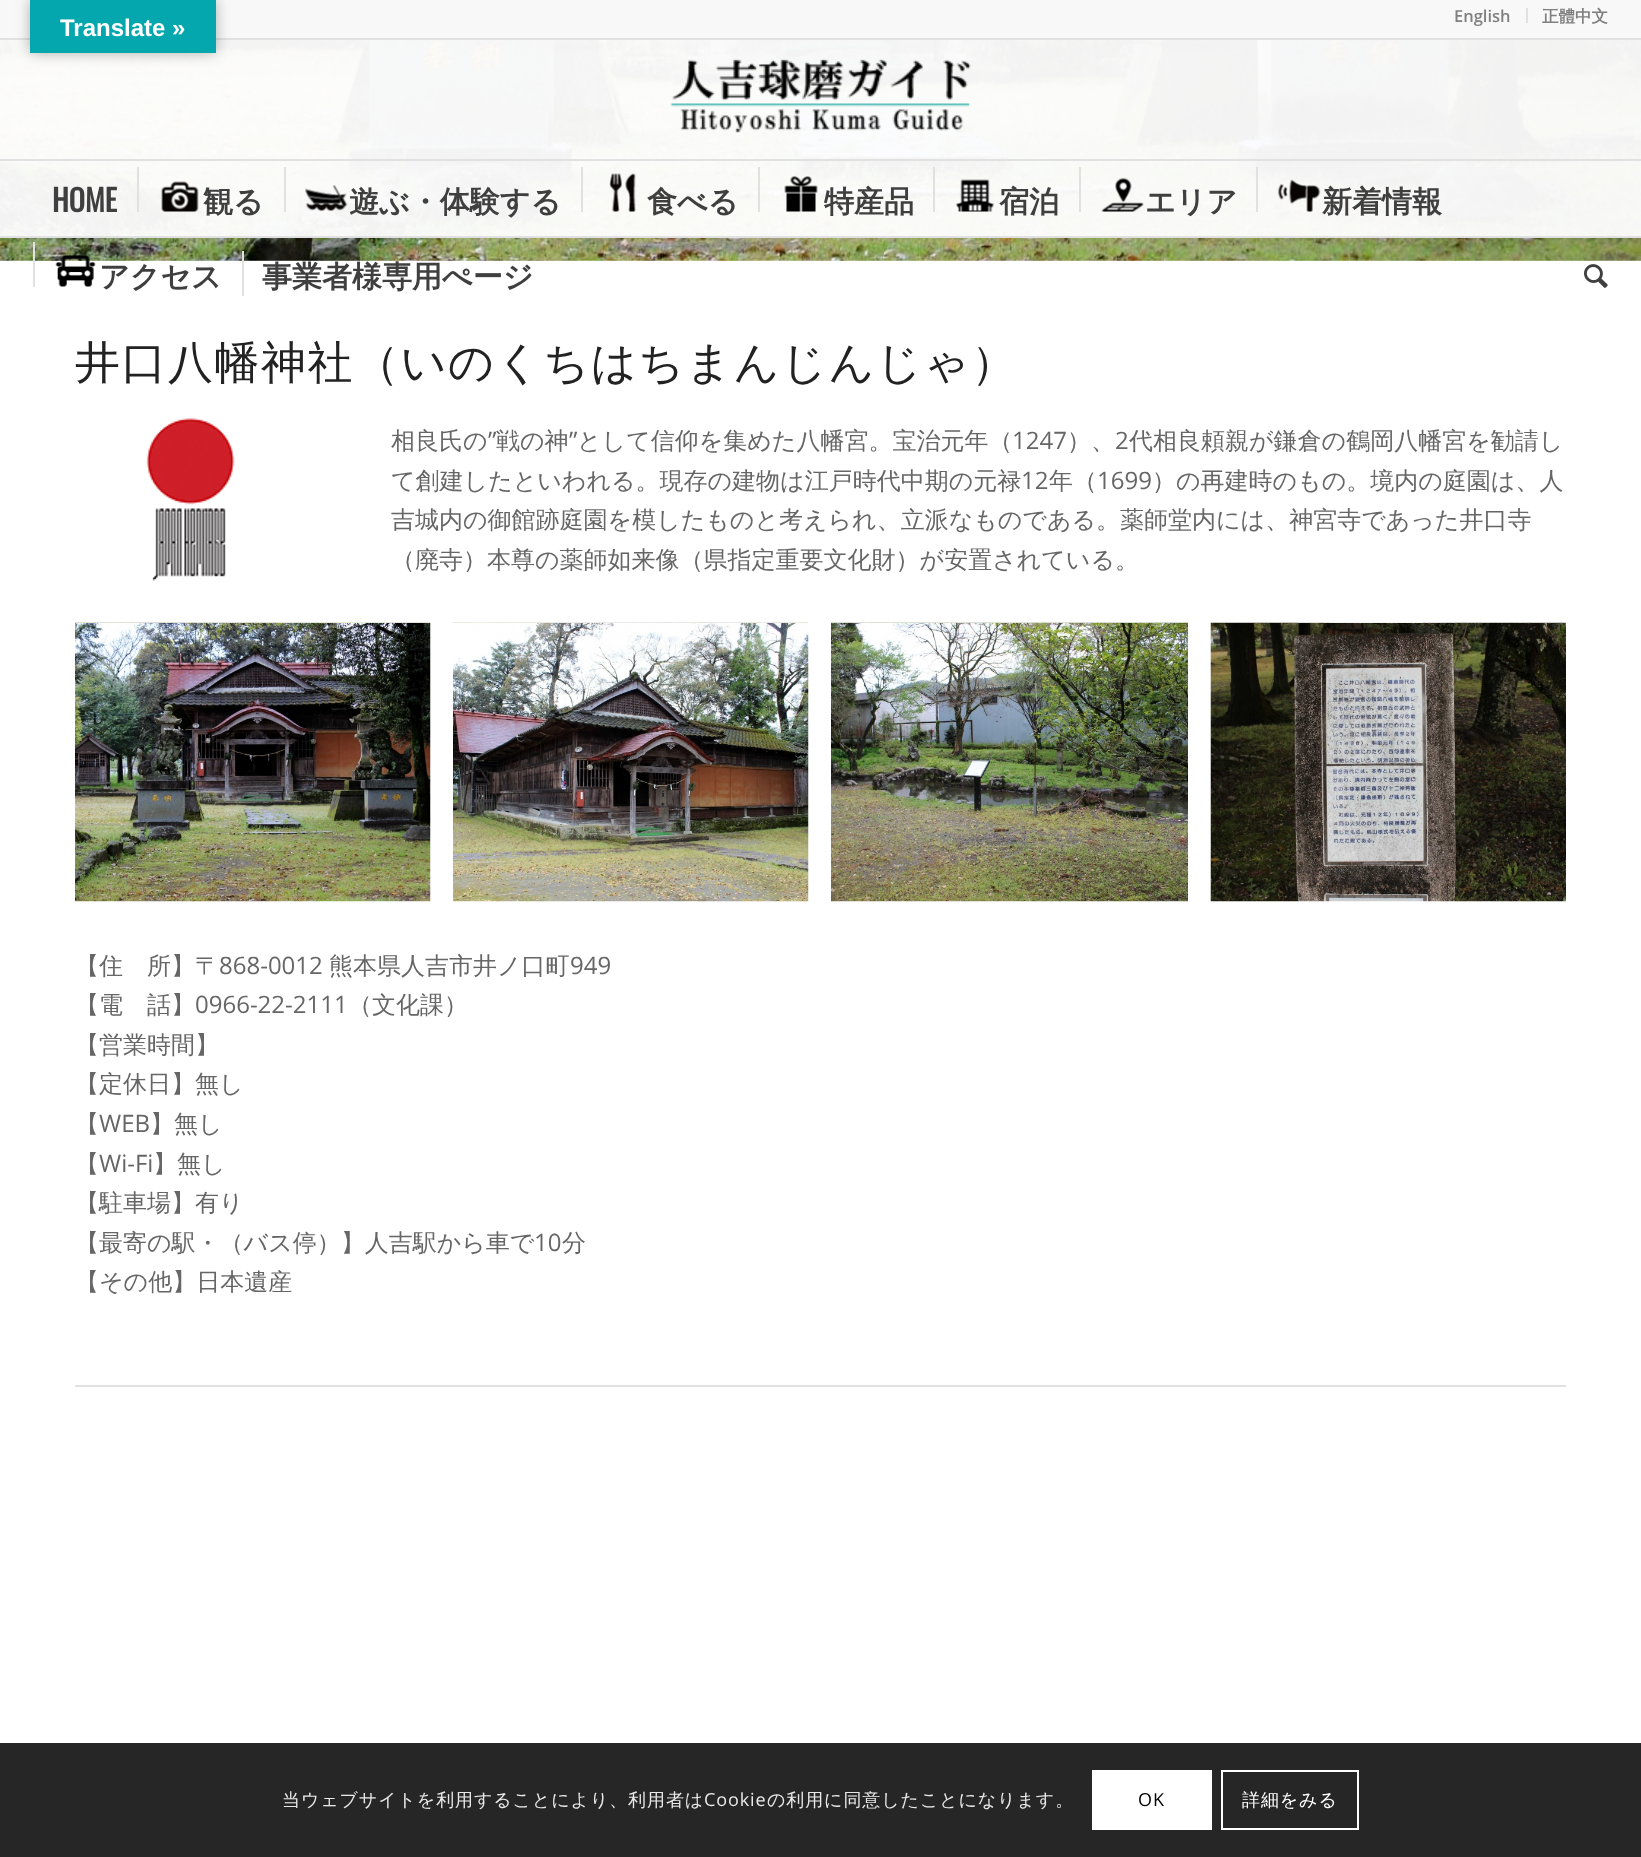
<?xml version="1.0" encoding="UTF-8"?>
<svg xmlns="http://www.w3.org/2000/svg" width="1641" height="1857">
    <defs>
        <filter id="blur1" x="-50%" y="-200%" width="200%" height="500%"><feGaussianBlur stdDeviation="7"/></filter>
    </defs>
    <rect width="100%" height="100%" fill="#FFFFFF"/>
    <rect x="0" y="0" width="1641" height="38" fill="#F8F8F8"/>
    <rect x="0" y="38" width="1641" height="2" fill="#E1E1E1"/>
    <rect x="1526" y="8" width="2" height="15" fill="#E1E1E1"/>
    <text x="1454" y="22" font-family="Open Sans" font-size="16.5" font-weight="600" fill="#808080">English</text>
    <text x="1542" y="22" font-family="WenQuanYi Zen Hei" font-size="16.5" font-weight="700" fill="#808080">正體中文</text>
    <image x="0" y="40" width="1641" height="221" href="img_11.png"/>
    <rect x="0" y="236" width="1641" height="2" fill="#E1E1E1"/>
    <image x="670" y="59" width="301" height="74" href="img_01.png"/>
    <rect x="0" y="159" width="1641" height="2" fill="#E1E1E1"/>
    <text x="52" y="212" font-family="Oswald" font-size="30" font-weight="700" fill="#3F3F40">HOME</text>
    <rect x="137" y="167" width="2" height="45" fill="#E1E1E1"/>
    <image x="161" y="181" width="38" height="31" href="img_02.png"/>
    <text x="203" y="212" font-family="WenQuanYi Zen Hei" font-size="30" font-weight="700" fill="#3F3F40">観る</text>
    <rect x="284" y="167" width="2" height="45" fill="#E1E1E1"/>
    <image x="305" y="185" width="43" height="27" href="img_03.png"/>
    <text x="349" y="212" font-family="WenQuanYi Zen Hei" font-size="30" font-weight="700" fill="#3F3F40">遊ぶ・体験する</text>
    <rect x="581" y="167" width="2" height="45" fill="#E1E1E1"/>
    <image x="609" y="173" width="27" height="39" href="img_04.png"/>
    <text x="647" y="212" font-family="WenQuanYi Zen Hei" font-size="30" font-weight="700" fill="#3F3F40">食べる</text>
    <rect x="758" y="167" width="2" height="45" fill="#E1E1E1"/>
    <image x="784" y="176" width="34" height="36" href="img_05.png"/>
    <text x="824" y="212" font-family="WenQuanYi Zen Hei" font-size="30" font-weight="700" fill="#3F3F40">特産品</text>
    <rect x="933" y="167" width="2" height="45" fill="#E1E1E1"/>
    <image x="956" y="179" width="38" height="33" href="img_06.png"/>
    <text x="999" y="212" font-family="WenQuanYi Zen Hei" font-size="30" font-weight="700" fill="#3F3F40">宿泊</text>
    <rect x="1079" y="167" width="2" height="45" fill="#E1E1E1"/>
    <image x="1101" y="177" width="43" height="35" href="img_07.png"/>
    <text x="1145" y="212" font-family="WenQuanYi Zen Hei" font-size="30" font-weight="700" fill="#3F3F40">エリア</text>
    <rect x="1256" y="167" width="2" height="45" fill="#E1E1E1"/>
    <image x="1277" y="179" width="44" height="33" href="img_08.png"/>
    <text x="1322" y="212" font-family="WenQuanYi Zen Hei" font-size="30" font-weight="700" fill="#3F3F40">新着情報</text>
    <rect x="33" y="242" width="2" height="45" fill="#E1E1E1"/>
    <image x="55" y="255" width="41" height="32" href="img_09.png"/>
    <text x="99" y="287" font-family="WenQuanYi Zen Hei" font-size="30" font-weight="700" fill="#3F3F40">アクセス</text>
    <text x="262" y="287" font-family="WenQuanYi Zen Hei" font-size="30" font-weight="700" fill="#3F3F40">事業者様専用ぺージ</text>
    <rect x="242" y="251" width="2" height="45" fill="#E1E1E1"/>
    <image x="1584" y="264" width="24" height="24" href="img_10.png"/>
    <text x="75" y="378" font-family="WenQuanYi Zen Hei" font-size="45" font-weight="500" letter-spacing="1.5" fill="#222222">井口八幡神社（いのくちはちまんじんじゃ）</text>
    <image x="146" y="418" width="89" height="163" href="img_12.png"/>
    <text x="391" y="449" font-family="WenQuanYi Zen Hei" font-size="24" font-weight="500" fill="#666666">相良氏の</text>
    <text x="488" y="449" font-family="Open Sans" font-size="24" fill="#666666">”</text>
    <text x="496" y="449" font-family="WenQuanYi Zen Hei" font-size="24" font-weight="500" fill="#666666">戦の神</text>
    <text x="569" y="449" font-family="Open Sans" font-size="24" fill="#666666">”</text>
    <text x="577" y="449" font-family="WenQuanYi Zen Hei" font-size="24" font-weight="500" fill="#666666">として信仰を集めた八幡宮。宝治元年（</text>
    <text x="1012" y="449" font-family="Open Sans" font-size="24" fill="#666666">1247</text>
    <text x="1067" y="449" font-family="WenQuanYi Zen Hei" font-size="24" font-weight="500" fill="#666666">）、</text>
    <text x="1115" y="449" font-family="Open Sans" font-size="24" fill="#666666">2</text>
    <text x="1129" y="449" font-family="WenQuanYi Zen Hei" font-size="24" font-weight="500" fill="#666666">代相良頼親が鎌倉の鶴岡八幡宮を勧請し</text>
    <text x="391" y="489" font-family="WenQuanYi Zen Hei" font-size="24" font-weight="500" fill="#666666">て創建したといわれる。現存の建物は江戸時代中期の元禄</text>
    <text x="1021" y="489" font-family="Open Sans" font-size="24" fill="#666666">12</text>
    <text x="1049" y="489" font-family="WenQuanYi Zen Hei" font-size="24" font-weight="500" fill="#666666">年（</text>
    <text x="1097" y="489" font-family="Open Sans" font-size="24" fill="#666666">1699</text>
    <text x="1152" y="489" font-family="WenQuanYi Zen Hei" font-size="24" font-weight="500" fill="#666666">）の再建時のもの。境内の庭園は、人</text>
    <text font-family="WenQuanYi Zen Hei" font-size="24" font-weight="500" fill="#666666">
        <tspan x="391" y="528">吉城内の御館跡庭園を模したものと考えられ、立派なものである。薬師堂内には、神宮寺であった井口寺</tspan>
        <tspan x="391" y="568">（廃寺）本尊の薬師如来像（県指定重要文化財）が安置されている。</tspan>
    </text>
    <image x="75" y="622" width="356" height="280" href="img_13.png"/>
    <image x="453" y="622" width="356" height="280" href="img_14.png"/>
    <image x="831" y="622" width="357" height="280" href="img_15.png"/>
    <image x="1210" y="622" width="356" height="280" href="img_16.png"/>
    <text x="75" y="974" font-family="WenQuanYi Zen Hei" font-size="24" font-weight="500" fill="#666666">【住　所】〒</text>
    <text x="219" y="974" font-family="Open Sans" font-size="24" fill="#666666">868-0012</text>
    <text x="329" y="974" font-family="WenQuanYi Zen Hei" font-size="24" font-weight="500" fill="#666666">熊本県人吉市井ノ口町</text>
    <text x="570" y="974" font-family="Open Sans" font-size="24" fill="#666666">949</text>
    <text x="75" y="1013" font-family="WenQuanYi Zen Hei" font-size="24" font-weight="500" fill="#666666">【電　話】</text>
    <text x="195" y="1013" font-family="Open Sans" font-size="24" fill="#666666">0966-22-2111</text>
    <text x="348" y="1013" font-family="WenQuanYi Zen Hei" font-size="24" font-weight="500" fill="#666666">（文化課）</text>
    <text font-family="WenQuanYi Zen Hei" font-size="24" font-weight="500" fill="#666666">
        <tspan x="75" y="1053">【営業時間】</tspan>
        <tspan x="75" y="1092">【定休日】無し</tspan>
        <tspan x="75" y="1132">【</tspan>
    </text>
    <text x="99" y="1132" font-family="Open Sans" font-size="24" fill="#666666">WEB</text>
    <text x="150" y="1132" font-family="WenQuanYi Zen Hei" font-size="24" font-weight="500" fill="#666666">】無し</text>
    <text x="75" y="1172" font-family="WenQuanYi Zen Hei" font-size="24" font-weight="500" fill="#666666">【</text>
    <text x="99" y="1172" font-family="Open Sans" font-size="24" fill="#666666">Wi-Fi</text>
    <text x="153" y="1172" font-family="WenQuanYi Zen Hei" font-size="24" font-weight="500" fill="#666666">】無し</text>
    <text font-family="WenQuanYi Zen Hei" font-size="24" font-weight="500" fill="#666666">
        <tspan x="75" y="1211">【駐車場】有り</tspan>
        <tspan x="75" y="1251">【最寄の駅・（バス停）】人吉駅から車で</tspan>
    </text>
    <text x="534" y="1251" font-family="Open Sans" font-size="24" fill="#666666">10</text>
    <text x="562" y="1251" font-family="WenQuanYi Zen Hei" font-size="24" font-weight="500" fill="#666666">分</text>
    <text x="75" y="1290" font-family="WenQuanYi Zen Hei" font-size="24" font-weight="500" fill="#666666">【その他】日本遺産</text>
    <rect x="75" y="1385" width="1491" height="2" fill="#E1E1E1"/>
    <rect x="30" y="0" width="186" height="53" fill="#000000" fill-opacity="0.3" filter="url(#blur1)"/>
    <rect x="30" y="0" width="186" height="53" fill="#03A7AD"/>
    <text x="60" y="36" font-family="Liberation Sans" font-size="24" font-weight="700" fill="#FFFFFF">Translate »</text>
    <rect x="0" y="1743" width="1641" height="114" fill="#262626"/>
    <text x="282" y="1806" font-family="WenQuanYi Zen Hei" font-size="18" font-weight="500" letter-spacing="0.9" fill="#E9E9E9">当ウェブサイトを利用することにより、利用者は</text>
    <text x="704" y="1806" font-family="Open Sans" font-size="18" letter-spacing="0.9" fill="#E9E9E9">Cookie</text>
    <text x="767" y="1806" font-family="WenQuanYi Zen Hei" font-size="18" font-weight="500" letter-spacing="0.9" fill="#E9E9E9">の利用に同意したことになります。</text>
    <rect x="1092" y="1770" width="120" height="60" fill="#FFFFFF"/>
    <text x="1138" y="1806" font-family="Open Sans" font-size="18" letter-spacing="0.9" fill="#000000">OK</text>
    <rect x="1222" y="1771" width="136" height="58" fill="none" stroke="#FFFFFF" stroke-width="2"/>
    <text x="1242" y="1806" font-family="WenQuanYi Zen Hei" font-size="18" font-weight="500" letter-spacing="0.9" fill="#FFFFFF">詳細をみる</text>
</svg>
